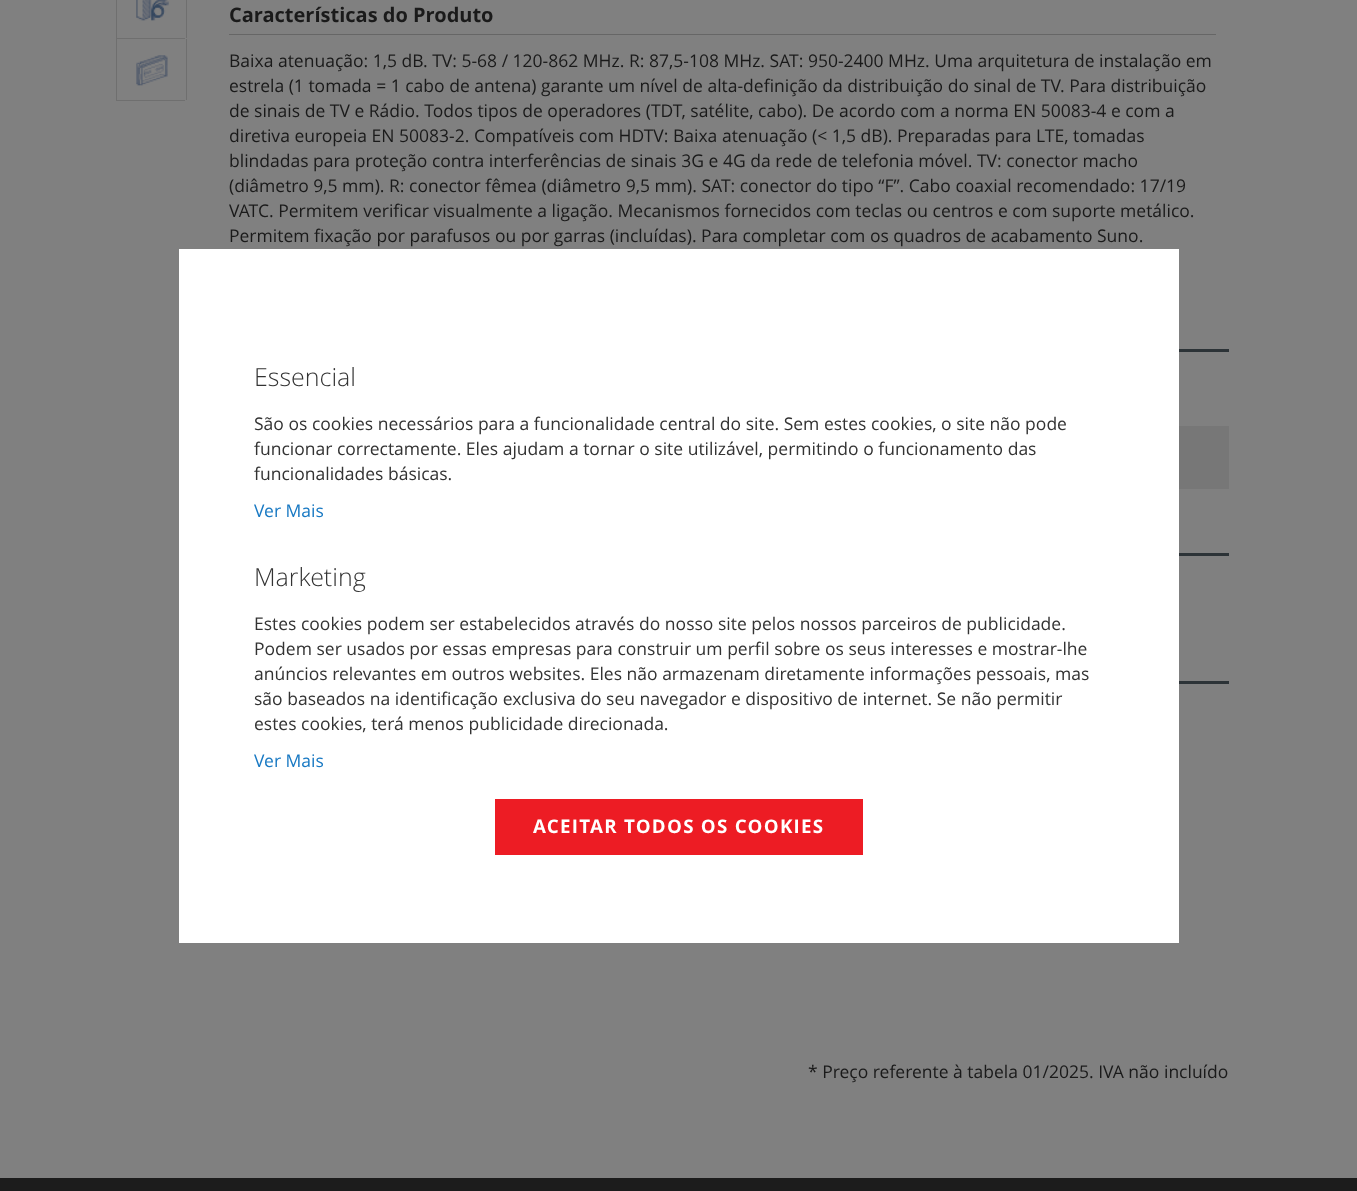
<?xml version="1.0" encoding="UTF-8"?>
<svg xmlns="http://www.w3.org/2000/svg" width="1357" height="1191">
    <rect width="100%" height="100%" fill="#808080"/>
    <rect x="116" y="38" width="69" height="1" fill="#6F6F6F"/>
    <rect x="186" y="0" width="1" height="38" fill="#6F6F6F"/>
    <rect x="116" y="0" width="1" height="38" fill="#6F6F6F"/>
    <image x="136" y="0" width="33" height="21" href="img_01.png"/>
    <rect x="116" y="100" width="69" height="1" fill="#6F6F6F"/>
    <rect x="186" y="39" width="1" height="61" fill="#6F6F6F"/>
    <rect x="116" y="39" width="1" height="61" fill="#6F6F6F"/>
    <image x="136" y="55" width="32" height="31" href="img_02.png"/>
    <rect x="229" y="34" width="987" height="1" fill="#666666"/>
    <text x="229" y="22" font-family="Open Sans" font-size="20" font-weight="700" fill="#1A1A1A">Características do Produto</text>
    <text font-family="Open Sans" font-size="17.5" fill="#1A1A1A">
        <tspan x="229" y="67">Baixa atenuação: 1,5 dB. TV: 5-68 / 120-862 MHz. R: 87,5-108 MHz. SAT: 950-2400 MHz. Uma arquitetura de instalação em</tspan>
        <tspan x="229" y="92">estrela (1 tomada = 1 cabo de antena) garante um nível de alta-definição da distribuição do sinal de TV. Para distribuição</tspan>
        <tspan x="229" y="117">de sinais de TV e Rádio. Todos tipos de operadores (TDT, satélite, cabo). De acordo com a norma EN 50083-4 e com a</tspan>
        <tspan x="229" y="142">diretiva europeia EN 50083-2. Compatíveis com HDTV: Baixa atenuação (&lt; 1,5 dB). Preparadas para LTE, tomadas</tspan>
        <tspan x="229" y="167">blindadas para proteção contra interferências de sinais 3G e 4G da rede de telefonia móvel. TV: conector macho</tspan>
        <tspan x="229" y="192">(diâmetro 9,5 mm). R: conector fêmea (diâmetro 9,5 mm). SAT: conector do tipo “F”. Cabo coaxial recomendado: 17/19</tspan>
        <tspan x="229" y="217">VATC. Permitem verificar visualmente a ligação. Mecanismos fornecidos com teclas ou centros e com suporte metálico.</tspan>
        <tspan x="229" y="242">Permitem fixação por parafusos ou por garras (incluídas). Para completar com os quadros de acabamento Suno.</tspan>
    </text>
    <rect x="1179" y="349" width="50" height="3" fill="#2C3337"/>
    <rect x="1179" y="426" width="50" height="63" fill="#777777"/>
    <rect x="1179" y="553" width="50" height="3" fill="#2C3337"/>
    <rect x="1179" y="681" width="50" height="3" fill="#2C3337"/>
    <text x="808" y="1078" font-family="Open Sans" font-size="17.5" fill="#1A1A1A">* Preço referente à tabela 01/2025. IVA não incluído</text>
    <rect x="179" y="249" width="1000" height="694" fill="#FFFFFF"/>
    <text x="254" y="386" font-family="Open Sans" font-size="25" font-weight="300" fill="#333333">Essencial</text>
    <text font-family="Open Sans" font-size="17.5" fill="#333333">
        <tspan x="254" y="430">São os cookies necessários para a funcionalidade central do site. Sem estes cookies, o site não pode</tspan>
        <tspan x="254" y="455">funcionar correctamente. Eles ajudam a tornar o site utilizável, permitindo o funcionamento das</tspan>
        <tspan x="254" y="480">funcionalidades básicas.</tspan>
    </text>
    <text x="254" y="517" font-family="Open Sans" font-size="17.5" fill="#1979C3">Ver Mais</text>
    <text x="254" y="586" font-family="Open Sans" font-size="25" font-weight="300" fill="#333333">Marketing</text>
    <text font-family="Open Sans" font-size="17.5" fill="#333333">
        <tspan x="254" y="630">Estes cookies podem ser estabelecidos através do nosso site pelos nossos parceiros de publicidade.</tspan>
        <tspan x="254" y="655">Podem ser usados por essas empresas para construir um perfil sobre os seus interesses e mostrar-lhe</tspan>
        <tspan x="254" y="680">anúncios relevantes em outros websites. Eles não armazenam diretamente informações pessoais, mas</tspan>
        <tspan x="254" y="705">são baseados na identificação exclusiva do seu navegador e dispositivo de internet. Se não permitir</tspan>
        <tspan x="254" y="730">estes cookies, terá menos publicidade direcionada.</tspan>
    </text>
    <text x="254" y="767" font-family="Open Sans" font-size="17.5" fill="#1979C3">Ver Mais</text>
    <rect x="495" y="799" width="368" height="56" fill="#ED1C24"/>
    <text x="533" y="833" font-family="Open Sans" font-size="18.75" font-weight="700" letter-spacing="1.25" fill="#FFFFFF">ACEITAR TODOS OS COOKIES</text>
    <rect x="0" y="1178" width="1357" height="13" fill="#1C1C1C"/>
</svg>
